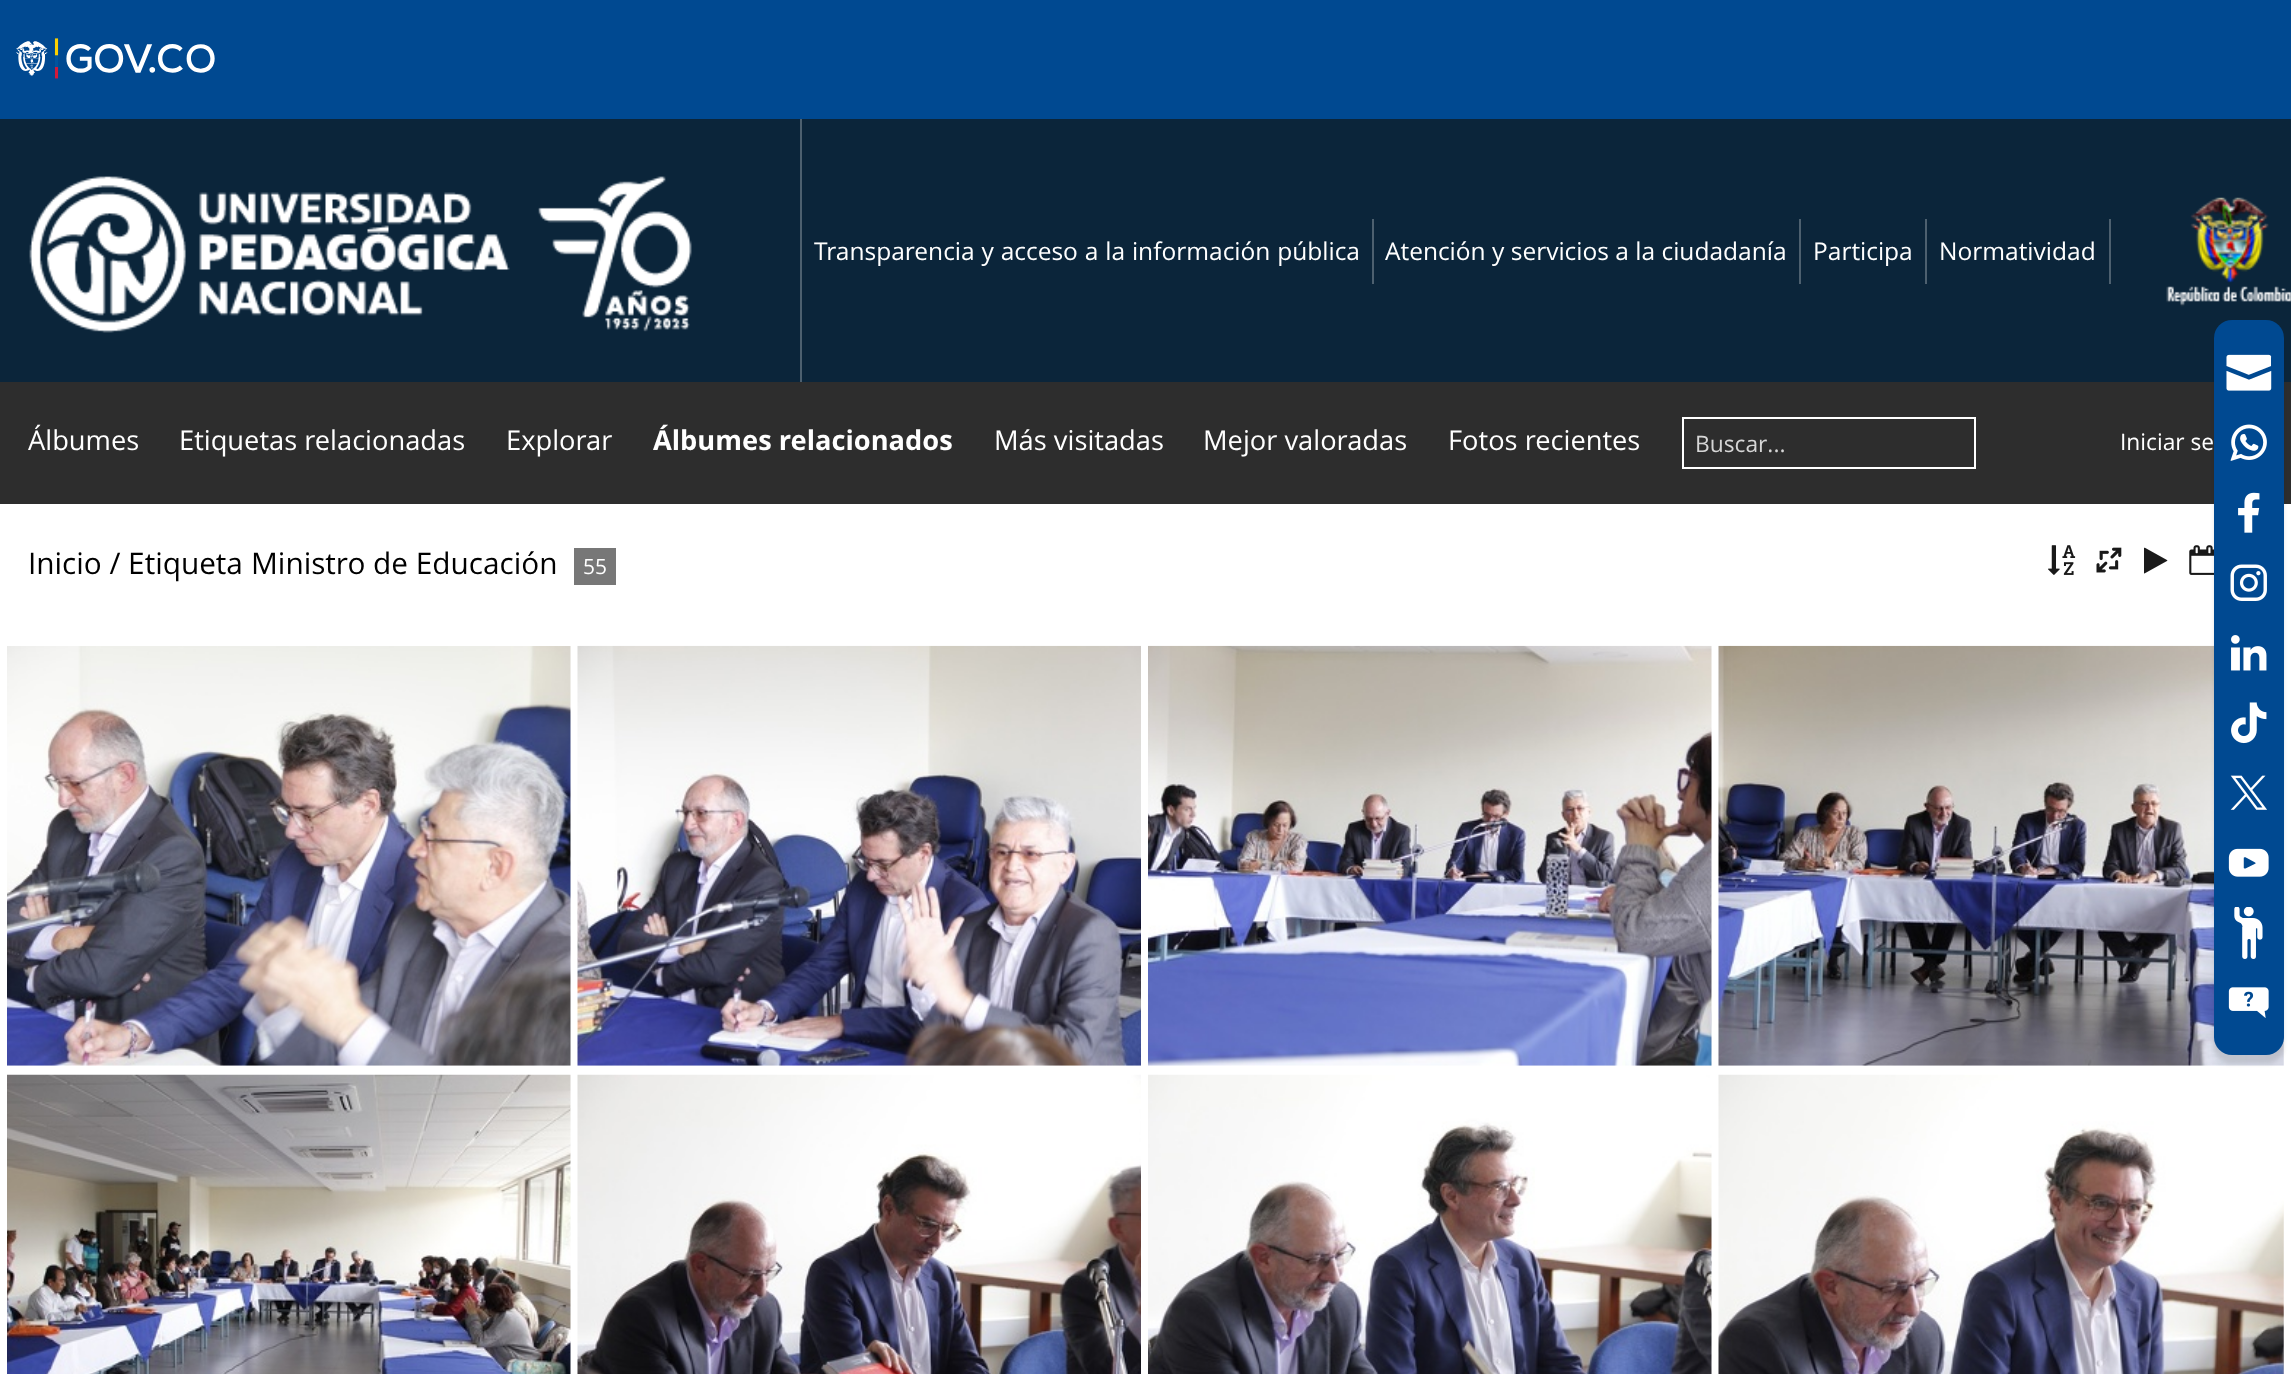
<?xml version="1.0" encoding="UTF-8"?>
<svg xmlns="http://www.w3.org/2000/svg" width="2291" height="1374">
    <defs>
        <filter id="blur1" x="-50%" y="-200%" width="200%" height="500%"><feGaussianBlur stdDeviation="2"/></filter>
    </defs>
    <rect width="100%" height="100%" fill="#FFFFFF"/>
    <rect x="0" y="0" width="2291" height="119" fill="#004991"/>
    <image x="16" y="38" width="199" height="41" href="img_01.png"/>
    <rect x="0" y="119" width="2291" height="263" fill="#0B253A"/>
    <rect x="800" y="119" width="2" height="263" fill="#4D606F"/>
    <image x="29" y="176" width="663" height="157" href="img_02.png"/>
    <rect x="1372" y="219" width="2" height="65" fill="#4D606F"/>
    <text x="814" y="260" word-spacing="0.5" font-family="Open Sans" font-size="24.5" fill="#FFFFFF">Transparencia y acceso a la información pública</text>
    <rect x="1799" y="219" width="2" height="65" fill="#4D606F"/>
    <text x="1385" y="260" font-family="Open Sans" font-size="24.5" fill="#FFFFFF">Atención y servicios a la ciudadanía</text>
    <rect x="1925" y="219" width="2" height="65" fill="#4D606F"/>
    <text x="1813" y="260" font-family="Open Sans" font-size="24.5" fill="#FFFFFF">Participa</text>
    <rect x="2109" y="219" width="2" height="65" fill="#4D606F"/>
    <text x="1939" y="260" font-family="Open Sans" font-size="24.5" fill="#FFFFFF">Normatividad</text>
    <image x="2166" y="197" width="125" height="110" href="img_03.png"/>
    <rect x="0" y="382" width="2291" height="122" fill="#2D2D2D"/>
    <text x="28" y="450" font-family="Open Sans" font-size="27.25" fill="#FFFFFF">Álbumes</text>
    <text x="179" y="450" font-family="Open Sans" font-size="27.25" fill="#FFFFFF">Etiquetas relacionadas</text>
    <text x="506" y="450" font-family="Open Sans" font-size="27.25" fill="#FFFFFF">Explorar</text>
    <text x="653" y="450" font-family="Open Sans" font-size="27.25" font-weight="700" fill="#FFFFFF">Álbumes relacionados</text>
    <text x="994" y="450" font-family="Open Sans" font-size="27.25" fill="#FFFFFF">Más visitadas</text>
    <text x="1203" y="450" font-family="Open Sans" font-size="27.25" fill="#FFFFFF">Mejor valoradas</text>
    <text x="1448" y="450" font-family="Open Sans" font-size="27.25" fill="#FFFFFF">Fotos recientes</text>
    <rect x="1683" y="418" width="292" height="50" fill="none" stroke="#FFFFFF" stroke-width="2"/>
    <text x="1695" y="452" font-family="Open Sans" font-size="22.75" fill="#D6D6D6">Buscar...</text>
    <text x="2120" y="450" font-family="Open Sans" font-size="22.75" fill="#FFFFFF">Iniciar se</text>
    <image x="2189" y="545" width="25" height="30" href="img_16.png"/>
    <image x="1718" y="645" width="566" height="421" href="img_20.png"/>
    <rect x="2214" y="329" width="70" height="735" rx="18" fill="#000000" fill-opacity="0.1" filter="url(#blur1)"/>
    <rect x="2214" y="320" width="70" height="735" rx="18" fill="#004991"/>
    <image x="2226" y="354" width="46" height="37" href="img_04.png"/>
    <image x="2230" y="424" width="37" height="37" href="img_05.png"/>
    <image x="2238" y="492" width="22" height="41" href="img_06.png"/>
    <image x="2230" y="564" width="37" height="37" href="img_07.png"/>
    <image x="2231" y="635" width="36" height="36" href="img_08.png"/>
    <image x="2231" y="702" width="36" height="42" href="img_09.png"/>
    <image x="2230" y="775" width="37" height="35" href="img_10.png"/>
    <image x="2228" y="848" width="41" height="29" href="img_11.png"/>
    <image x="2234" y="907" width="29" height="52" href="img_12.png"/>
    <image x="2228" y="987" width="41" height="31" href="img_13.png"/>
    <text x="28" y="574" font-family="Open Sans" font-size="29.75" fill="#000000">Inicio / Etiqueta</text>
    <text x="251" y="574" font-family="Open Sans" font-size="29.75" fill="#000000">Ministro de Educación</text>
    <rect x="574" y="548" width="42" height="37" fill="#777777"/>
    <text x="583" y="574" font-family="Open Sans" font-size="21" fill="#FFFFFF">55</text>
    <image x="2048" y="545" width="28" height="30" href="img_14.png"/>
    <image x="2096" y="547" width="26" height="26" href="img_15.png"/>
    <text x="2144" y="571" font-family="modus" font-size="29.75" fill="#1A1A1A">▶</text>
    <image x="7" y="646" width="564" height="420" href="img_17.png"/>
    <image x="577" y="645" width="564" height="421" href="img_18.png"/>
    <image x="1148" y="645" width="564" height="421" href="img_19.png"/>
    <image x="7" y="1074" width="564" height="300" href="img_21.png"/>
    <image x="577" y="1074" width="564" height="300" href="img_22.png"/>
    <image x="1148" y="1074" width="564" height="300" href="img_23.png"/>
    <image x="1718" y="1074" width="566" height="300" href="img_24.png"/>
</svg>
